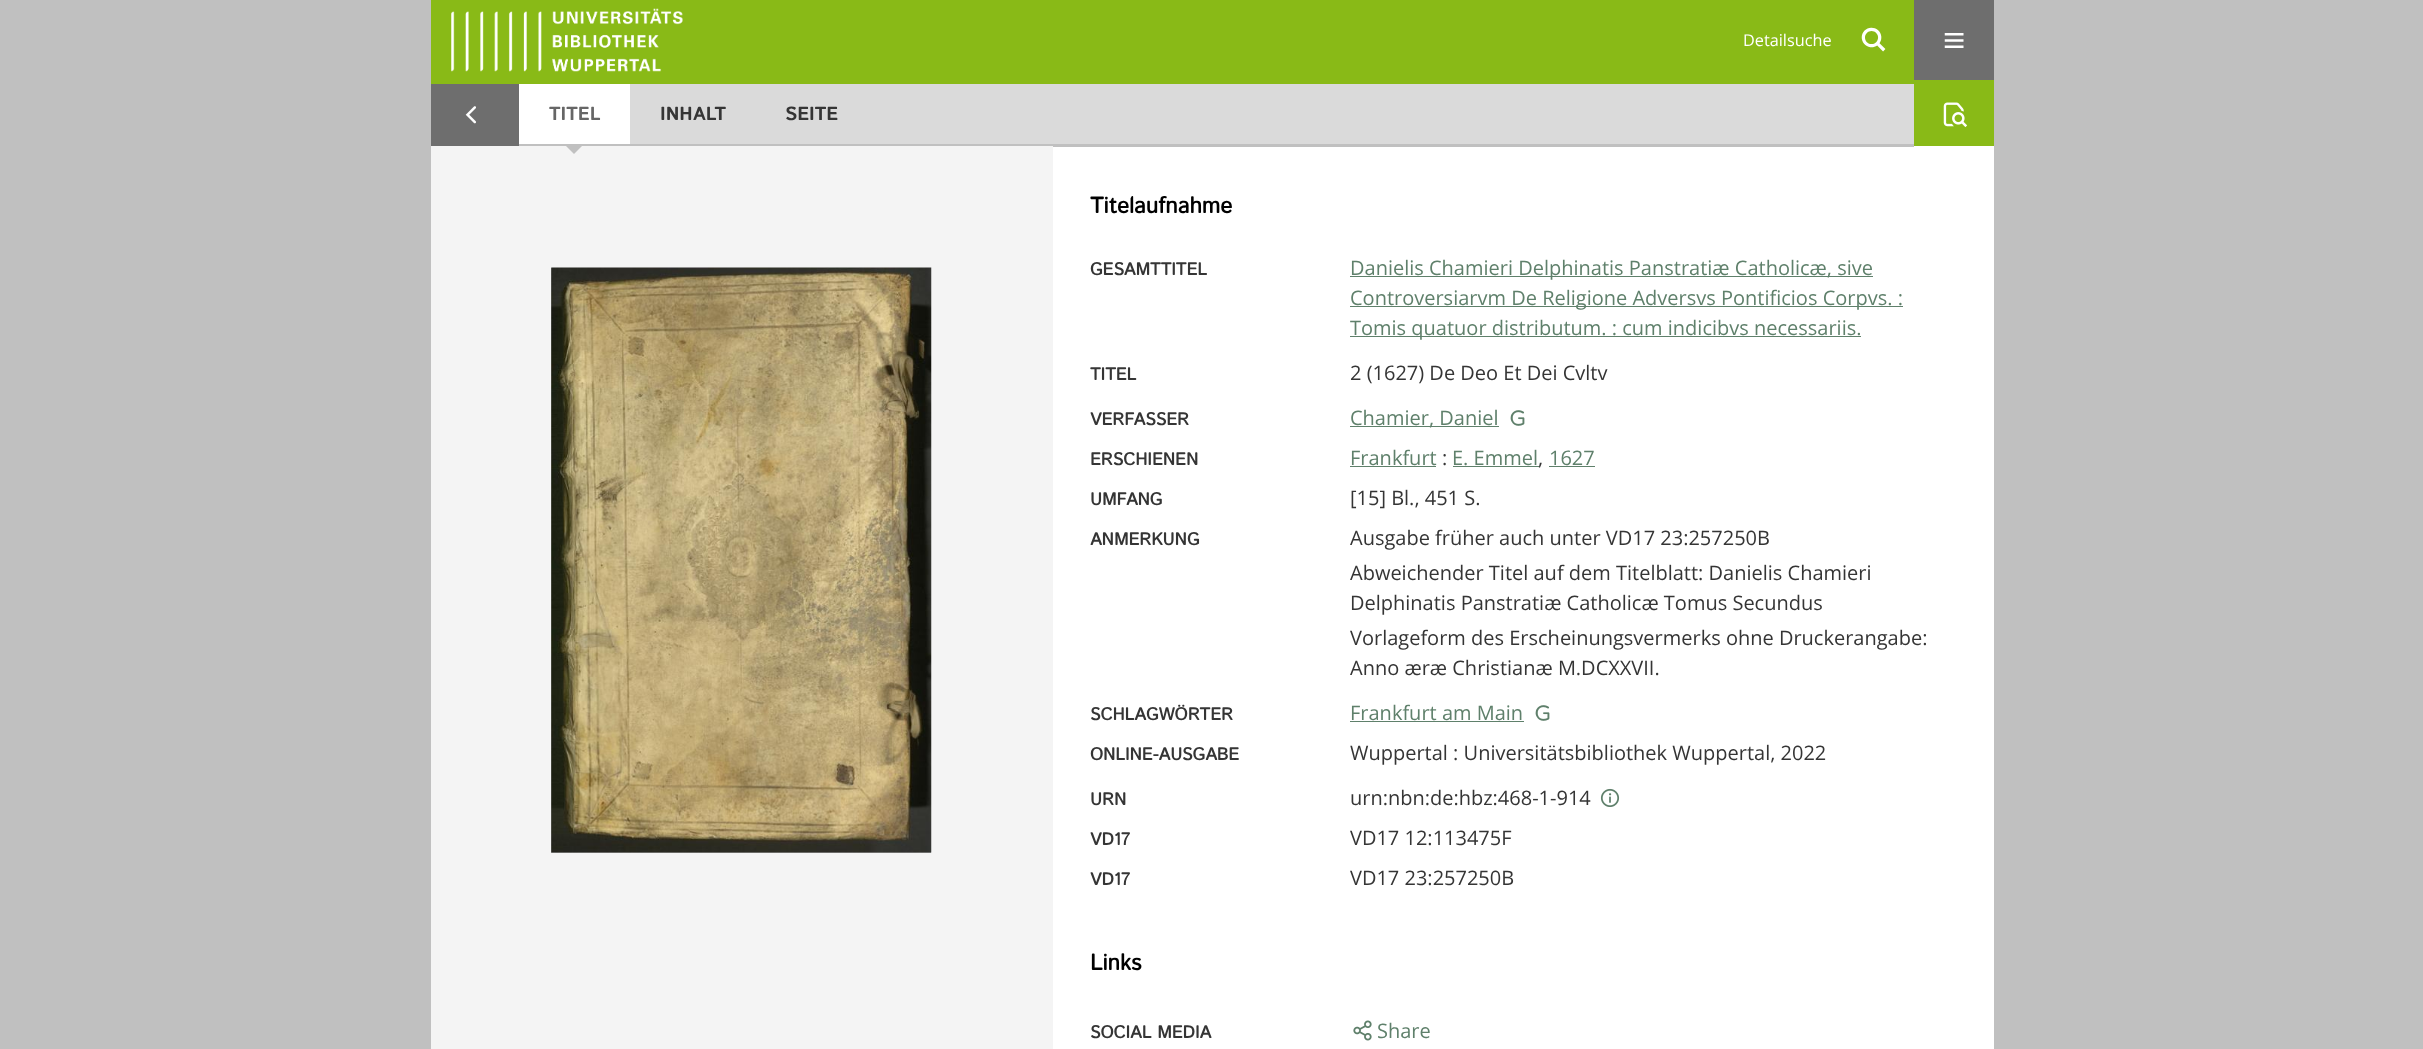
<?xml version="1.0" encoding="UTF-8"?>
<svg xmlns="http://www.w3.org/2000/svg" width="2423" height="1049">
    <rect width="100%" height="100%" fill="#C0C0C0"/>
    <rect x="1053" y="146" width="941" height="903" fill="#FFFFFF"/>
    <rect x="431" y="0" width="1483" height="80" fill="#89BA17"/>
    <image x="451" y="8" width="232" height="64" href="img_01.png"/>
    <text x="1743" y="46" font-family="Open Sans" font-size="16.25" fill="#FFFFFF">Detailsuche</text>
    <image x="1861" y="27" width="25" height="25" href="img_02.png"/>
    <rect x="1914" y="0" width="80" height="80" fill="#6E6E6E"/>
    <image x="1944" y="33" width="20" height="15" href="img_03.png"/>
    <rect x="431" y="80" width="1563" height="4" fill="#89BA17"/>
    <rect x="630" y="84" width="1284" height="60" fill="#DADADA"/>
    <rect x="1053" y="146" width="861" height="1" fill="#C0C0C0"/>
    <rect x="431" y="84" width="88" height="62" fill="#6E6E6E"/>
    <image x="465" y="106" width="11" height="18" href="img_04.png"/>
    <rect x="519" y="84" width="111" height="60" fill="#FFFFFF"/>
    <text x="549" y="120" font-family="'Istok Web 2'" font-size="19" font-weight="700" fill="#666666">TITEL</text>
    <rect x="431" y="146" width="622" height="903" fill="#F4F4F4"/>
    <path d="M 564 144 H 584 L 574 154 Z" fill="#C0C0C0"/>
    <text x="660" y="120" font-family="'Istok Web 2'" font-size="19" font-weight="700" fill="#353535">INHALT</text>
    <text x="785" y="120" font-family="'Istok Web 2'" font-size="19" font-weight="700" fill="#353535">SEITE</text>
    <rect x="1914" y="84" width="80" height="62" fill="#89BA17"/>
    <image x="1943" y="102" width="25" height="26" href="img_05.png"/>
    <rect x="551" y="268" width="380" height="585" fill="#AAAAAA"/>
    <image x="551" y="267" width="381" height="586" href="img_06.png"/>
    <text x="1090" y="213" font-family="Istok Web" font-size="22.5" font-weight="700" fill="#000000">Titelaufnahme</text>
    <text x="1090" y="275" font-family="Istok Web" font-size="17.5" font-weight="700" fill="#353535">GESAMTTITEL</text>
    <rect x="1350" y="276" width="523" height="1" fill="#5F806B"/>
    <text x="1350" y="275" font-family="Open Sans" font-size="20" fill="#5F806B">Danielis Chamieri Delphinatis Panstratiæ Catholicæ, sive</text>
    <rect x="1350" y="306" width="553" height="1" fill="#5F806B"/>
    <text x="1350" y="305" font-family="Open Sans" font-size="20" fill="#5F806B">Controversiarvm De Religione Adversvs Pontificios Corpvs. :</text>
    <rect x="1350" y="336" width="511" height="1" fill="#5F806B"/>
    <text x="1350" y="335" font-family="Open Sans" font-size="20" fill="#5F806B">Tomis quatuor distributum. : cum indicibvs necessariis.</text>
    <text x="1090" y="380" font-family="Istok Web" font-size="17.5" font-weight="700" fill="#353535">TITEL</text>
    <text x="1350" y="380" font-family="Open Sans" font-size="20" fill="#353535">2 (1627) De Deo Et Dei Cvltv</text>
    <text x="1090" y="425" font-family="Istok Web" font-size="17.5" font-weight="700" fill="#353535">VERFASSER</text>
    <rect x="1350" y="426" width="149" height="1" fill="#5F806B"/>
    <text x="1350" y="425" font-family="Open Sans" font-size="20" fill="#5F806B">Chamier, Daniel</text>
    <image x="1510" y="410" width="15" height="16" href="img_07.png"/>
    <text x="1090" y="465" font-family="Istok Web" font-size="17.5" font-weight="700" fill="#353535">ERSCHIENEN</text>
    <text x="1350" y="465" font-family="Open Sans" font-size="20" fill="#5F806B">Frankfurt</text>
    <rect x="1350" y="466" width="86" height="1" fill="#5F806B"/>
    <text x="1442" y="465" font-family="Open Sans" font-size="20" fill="#353535">:</text>
    <text x="1452" y="465" font-family="Open Sans" font-size="20" fill="#5F806B">E. Emmel</text>
    <rect x="1453" y="466" width="86" height="1" fill="#5F806B"/>
    <text x="1538" y="465" font-family="Open Sans" font-size="20" fill="#353535">,</text>
    <text x="1549" y="465" font-family="Open Sans" font-size="20" fill="#5F806B">1627</text>
    <rect x="1549" y="466" width="46" height="1" fill="#5F806B"/>
    <text x="1090" y="505" font-family="Istok Web" font-size="17.5" font-weight="700" fill="#353535">UMFANG</text>
    <text x="1350" y="505" font-family="Open Sans" font-size="20" fill="#353535">[15] Bl., 451 S.</text>
    <text x="1090" y="545" font-family="Istok Web" font-size="17.5" font-weight="700" fill="#353535">ANMERKUNG</text>
    <text font-family="Open Sans" font-size="20" fill="#353535">
        <tspan x="1350" y="545">Ausgabe früher auch unter VD17 23:257250B</tspan>
        <tspan x="1350" y="580">Abweichender Titel auf dem Titelblatt: Danielis Chamieri</tspan>
        <tspan x="1350" y="610">Delphinatis Panstratiæ Catholicæ Tomus Secundus</tspan>
        <tspan x="1350" y="645">Vorlageform des Erscheinungsvermerks ohne Druckerangabe:</tspan>
        <tspan x="1350" y="675">Anno æræ Christianæ M.DCXXVII.</tspan>
    </text>
    <text x="1090" y="720" font-family="Istok Web" font-size="17.5" font-weight="700" fill="#353535">SCHLAGWÖRTER</text>
    <text x="1350" y="720" font-family="Open Sans" font-size="20" fill="#5F806B">Frankfurt am Main</text>
    <rect x="1350" y="721" width="174" height="1" fill="#5F806B"/>
    <image x="1535" y="705" width="15" height="16" href="img_07.png"/>
    <text x="1090" y="760" font-family="Istok Web" font-size="17.5" font-weight="700" fill="#353535">ONLINE-AUSGABE</text>
    <text x="1350" y="760" font-family="Open Sans" font-size="20" fill="#353535">Wuppertal : Universitätsbibliothek Wuppertal, 2022</text>
    <text x="1090" y="805" font-family="Istok Web" font-size="17.5" font-weight="700" fill="#353535">URN</text>
    <text x="1350" y="805" font-family="Open Sans" font-size="20" fill="#353535">urn:nbn:de:hbz:468-1-914</text>
    <image x="1600" y="788" width="20" height="19" href="img_08.png"/>
    <text x="1090" y="845" font-family="Istok Web" font-size="17.5" font-weight="700" fill="#353535">VD17</text>
    <text x="1350" y="845" font-family="Open Sans" font-size="20" fill="#353535">VD17 12:113475F</text>
    <text x="1090" y="885" font-family="Istok Web" font-size="17.5" font-weight="700" fill="#353535">VD17</text>
    <text x="1350" y="885" font-family="Open Sans" font-size="20" fill="#353535">VD17 23:257250B</text>
    <text x="1090" y="970" font-family="Istok Web" font-size="22.5" font-weight="700" fill="#000000">Links</text>
    <text x="1090" y="1038" font-family="Istok Web" font-size="17.5" font-weight="700" fill="#353535">SOCIAL MEDIA</text>
    <image x="1353" y="1020" width="19" height="21" href="img_09.png"/>
    <text x="1377" y="1038" font-family="Open Sans" font-size="20" fill="#5F806B">Share</text>
</svg>
